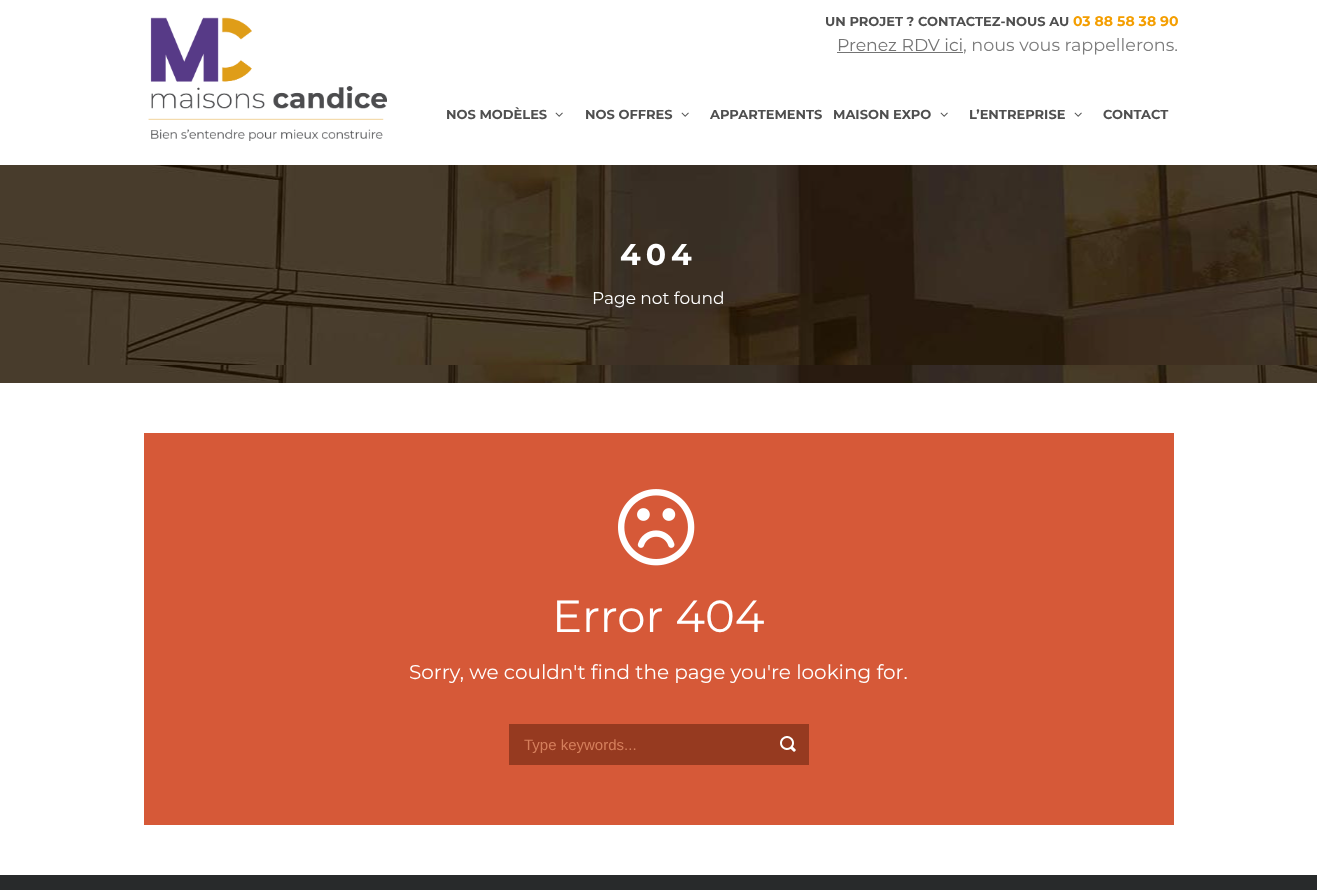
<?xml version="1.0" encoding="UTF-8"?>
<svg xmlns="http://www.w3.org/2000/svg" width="1317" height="890">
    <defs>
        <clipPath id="clip1"><rect x="524" y="736" width="270" height="17"/></clipPath>
    </defs>
    <rect width="100%" height="100%" fill="#FFFFFF"/>
    <image x="148" y="17" width="239" height="124" href="img_01.png"/>
    <text x="825" y="26" font-family="Montserrat" font-size="13" font-weight="700" fill="#4F4F4F">UN PROJET ? CONTACTEZ-NOUS AU</text>
    <text x="1073" y="26" font-family="Montserrat" font-size="14" font-weight="700" fill="#F49E00">03 88 58 38 90</text>
    <text x="837" y="51" font-family="Montserrat" font-size="17.25" fill="#747474">Prenez RDV ici</text>
    <rect x="837" y="52" width="126" height="1" fill="#747474"/>
    <text x="963" y="51" font-family="Montserrat" font-size="17.6" fill="#7C7C7C">, nous vous rappellerons.</text>
    <text x="446" y="119" font-family="Montserrat" font-size="13" font-weight="700" fill="#4F4F4F">NOS MODÈLES</text>
    <image x="555" y="112" width="8" height="5" href="img_02.png"/>
    <text x="585" y="119" font-family="Montserrat" font-size="13" font-weight="700" fill="#4F4F4F">NOS OFFRES</text>
    <image x="681" y="112" width="8" height="5" href="img_02.png"/>
    <text x="710" y="119" font-family="Montserrat" font-size="13" font-weight="700" fill="#4F4F4F">APPARTEMENTS</text>
    <text x="833" y="119" font-family="Montserrat" font-size="13" font-weight="700" fill="#4F4F4F">MAISON EXPO</text>
    <image x="940" y="112" width="8" height="5" href="img_02.png"/>
    <text x="969" y="119" font-family="Montserrat" font-size="13" font-weight="700" fill="#4F4F4F">L’ENTREPRISE</text>
    <image x="1074" y="112" width="8" height="5" href="img_02.png"/>
    <text x="1103" y="119" font-family="Montserrat" font-size="13" font-weight="700" fill="#4F4F4F">CONTACT</text>
    <image x="0" y="165" width="1317" height="218" href="img_03.png"/>
    <text x="620" y="265" font-family="Montserrat" font-size="30" font-weight="700" letter-spacing="5" fill="#FFFFFF">404</text>
    <text x="592" y="304" font-family="Montserrat" font-size="17" fill="#FFFFFF">Page not found</text>
    <rect x="144" y="433" width="1030" height="392" fill="#D65938"/>
    <image x="618" y="489" width="77" height="77" href="img_04.png"/>
    <text x="552" y="632" font-family="Montserrat" font-size="45" fill="#FFFFFF">Error 404</text>
    <text x="409" y="679" font-family="Montserrat" font-size="20" fill="#FFFFFF">Sorry, we couldn't find the page you're looking for.</text>
    <rect x="509" y="724" width="300" height="41" fill="#963A20"/>
    <g clip-path="url(#clip1)">
        <text x="524" y="750" font-family="Liberation Sans" font-size="15" fill="#D57F5C">Type keywords...</text>
    </g>
    <image x="780" y="736" width="16" height="16" href="img_05.png"/>
    <rect x="0" y="875" width="1317" height="15" fill="#282A2B"/>
</svg>
